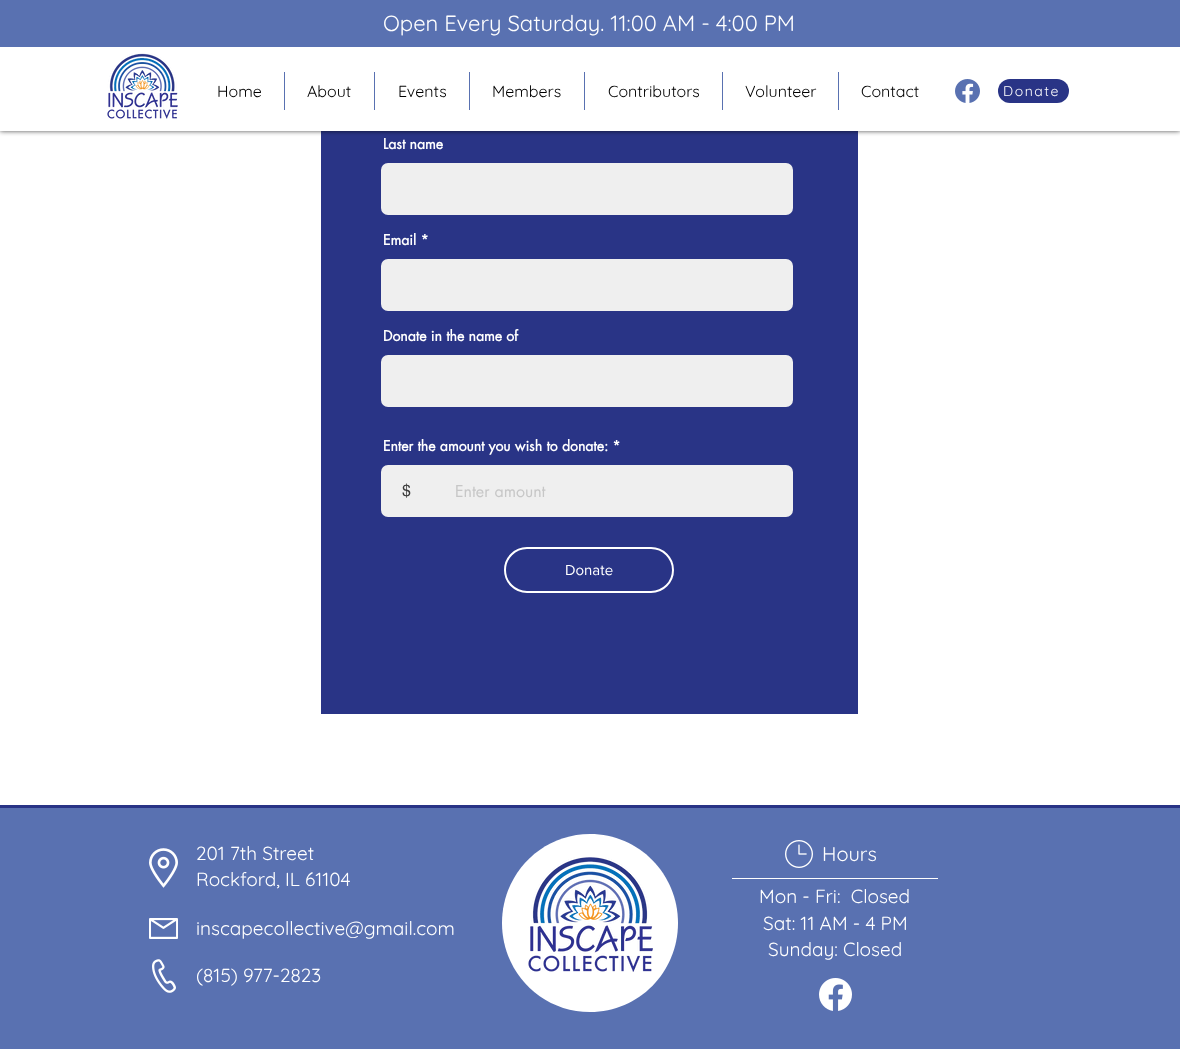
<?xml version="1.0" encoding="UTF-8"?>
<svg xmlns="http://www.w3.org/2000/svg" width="1180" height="1049">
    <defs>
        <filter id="blur1" x="-50%" y="-200%" width="200%" height="500%"><feGaussianBlur stdDeviation="2.5"/></filter>
    </defs>
    <rect width="100%" height="100%" fill="#FFFFFF"/>
    <rect x="321" y="131" width="537" height="583" fill="#293486"/>
    <rect x="0" y="0" width="1180" height="131" fill="#000000" fill-opacity="0.7" filter="url(#blur1)"/>
    <rect x="0" y="47" width="1180" height="84" fill="#FFFFFF"/>
    <rect x="0" y="0" width="1180" height="47" fill="#5971B1"/>
    <text x="383" y="31" font-family="Quicksand" font-size="22" fill="#FFFFFF">Open Every Saturday. 11:00 AM - 4:00 PM</text>
    <image x="107" y="53" width="71" height="66" href="img_01.png"/>
    <text x="217" y="97" font-family="Quicksand" font-size="16" fill="#000000">Home</text>
    <rect x="284" y="72" width="1" height="38" fill="#5971B1"/>
    <text x="307" y="97" font-family="Quicksand" font-size="16" fill="#000000">About</text>
    <rect x="374" y="72" width="1" height="38" fill="#5971B1"/>
    <text x="398" y="97" font-family="Quicksand" font-size="16" fill="#000000">Events</text>
    <rect x="469" y="72" width="1" height="38" fill="#5971B1"/>
    <text x="492" y="97" font-family="Quicksand" font-size="16" fill="#000000">Members</text>
    <rect x="584" y="72" width="1" height="38" fill="#5971B1"/>
    <text x="608" y="97" font-family="Quicksand" font-size="16" fill="#000000">Contributors</text>
    <rect x="722" y="72" width="1" height="38" fill="#5971B1"/>
    <text x="745" y="97" font-family="Quicksand" font-size="16" fill="#000000">Volunteer</text>
    <rect x="838" y="72" width="1" height="38" fill="#5971B1"/>
    <text x="861" y="97" font-family="Quicksand" font-size="16" fill="#000000">Contact</text>
    <image x="955" y="79" width="25" height="24" href="img_02.png"/>
    <rect x="998" y="79" width="71" height="24" rx="12" fill="#293486"/>
    <text x="1003" y="96" font-family="Quicksand" font-size="14" letter-spacing="1.5" fill="#FFFFFF">Donate</text>
    <text x="383" y="149" font-family="futura" font-size="14" font-weight="700" fill="#FFFFFF">Last name</text>
    <rect x="382" y="164" width="410" height="50" rx="6" fill="#EFEFEF" stroke="#EFEFEF" stroke-width="2"/>
    <text x="383" y="245" font-family="futura" font-size="14" font-weight="700" fill="#FFFFFF">Email *</text>
    <rect x="382" y="260" width="410" height="50" rx="6" fill="#EFEFEF" stroke="#EFEFEF" stroke-width="2"/>
    <text x="383" y="341" font-family="futura" font-size="14" font-weight="700" fill="#FFFFFF">Donate in the name of</text>
    <rect x="382" y="356" width="410" height="50" rx="6" fill="#EFEFEF" stroke="#EFEFEF" stroke-width="2"/>
    <text x="383" y="451" font-family="futura" font-size="14" font-weight="700" fill="#FFFFFF">Enter the amount you wish to donate: *</text>
    <rect x="382" y="466" width="410" height="50" rx="6" fill="#EFEFEF" stroke="#EFEFEF" stroke-width="2"/>
    <text x="402" y="496" font-family="helvetica" font-size="16" fill="#393939">$</text>
    <text x="455" y="497" font-family="futura" font-size="16" fill="#C7C7C7">Enter amount</text>
    <rect x="505" y="548" width="168" height="44" rx="22" fill="none" stroke="#FFFFFF" stroke-width="2"/>
    <text x="565" y="575" font-family="'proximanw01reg'" font-size="15" fill="#FFFFFF">Donate</text>
    <rect x="0" y="808" width="1180" height="241" fill="#5971B1"/>
    <rect x="0" y="805" width="1180" height="3" fill="#293486"/>
    <image x="149" y="848" width="29" height="40" href="img_03.png"/>
    <text font-family="Quicksand" font-size="19" fill="#FFFFFF">
        <tspan x="196" y="860">201 7th Street</tspan>
        <tspan x="196" y="886">Rockford, IL 61104</tspan>
    </text>
    <path d="M 678 923 C 678 972 639 1012 590 1012 C 541 1012 502 972 502 923 C 502 874 541 834 590 834 C 639 834 678 874 678 923 Z" fill="#FFFFFF"/>
    <image x="528" y="857" width="125" height="115" href="img_04.png"/>
    <image x="785" y="840" width="28" height="28" href="img_05.png"/>
    <text x="822" y="861" font-family="Quicksand" font-size="20" fill="#FFFFFF">Hours</text>
    <rect x="732" y="878" width="206" height="1" fill="#FFFFFF"/>
    <image x="149" y="918" width="29" height="21" href="img_06.png"/>
    <text x="196" y="935" font-family="Quicksand" font-size="19" fill="#FFFFFF">inscapecollective@gmail.com</text>
    <text x="759" y="903" font-family="Quicksand" font-size="19" fill="#FFFFFF" xml:space="preserve">Mon - Fri:  Closed</text>
    <text x="763" y="930" font-family="Quicksand" font-size="19" fill="#FFFFFF">Sat: 11 AM - 4 PM</text>
    <text x="768" y="956" font-family="Quicksand" font-size="19" fill="#FFFFFF">Sunday: Closed</text>
    <image x="152" y="959" width="24" height="34" href="img_07.png"/>
    <text x="196" y="982" font-family="Quicksand" font-size="19" fill="#FFFFFF">(815) 977-2823</text>
    <image x="819" y="978" width="33" height="33" href="img_08.png"/>
</svg>
